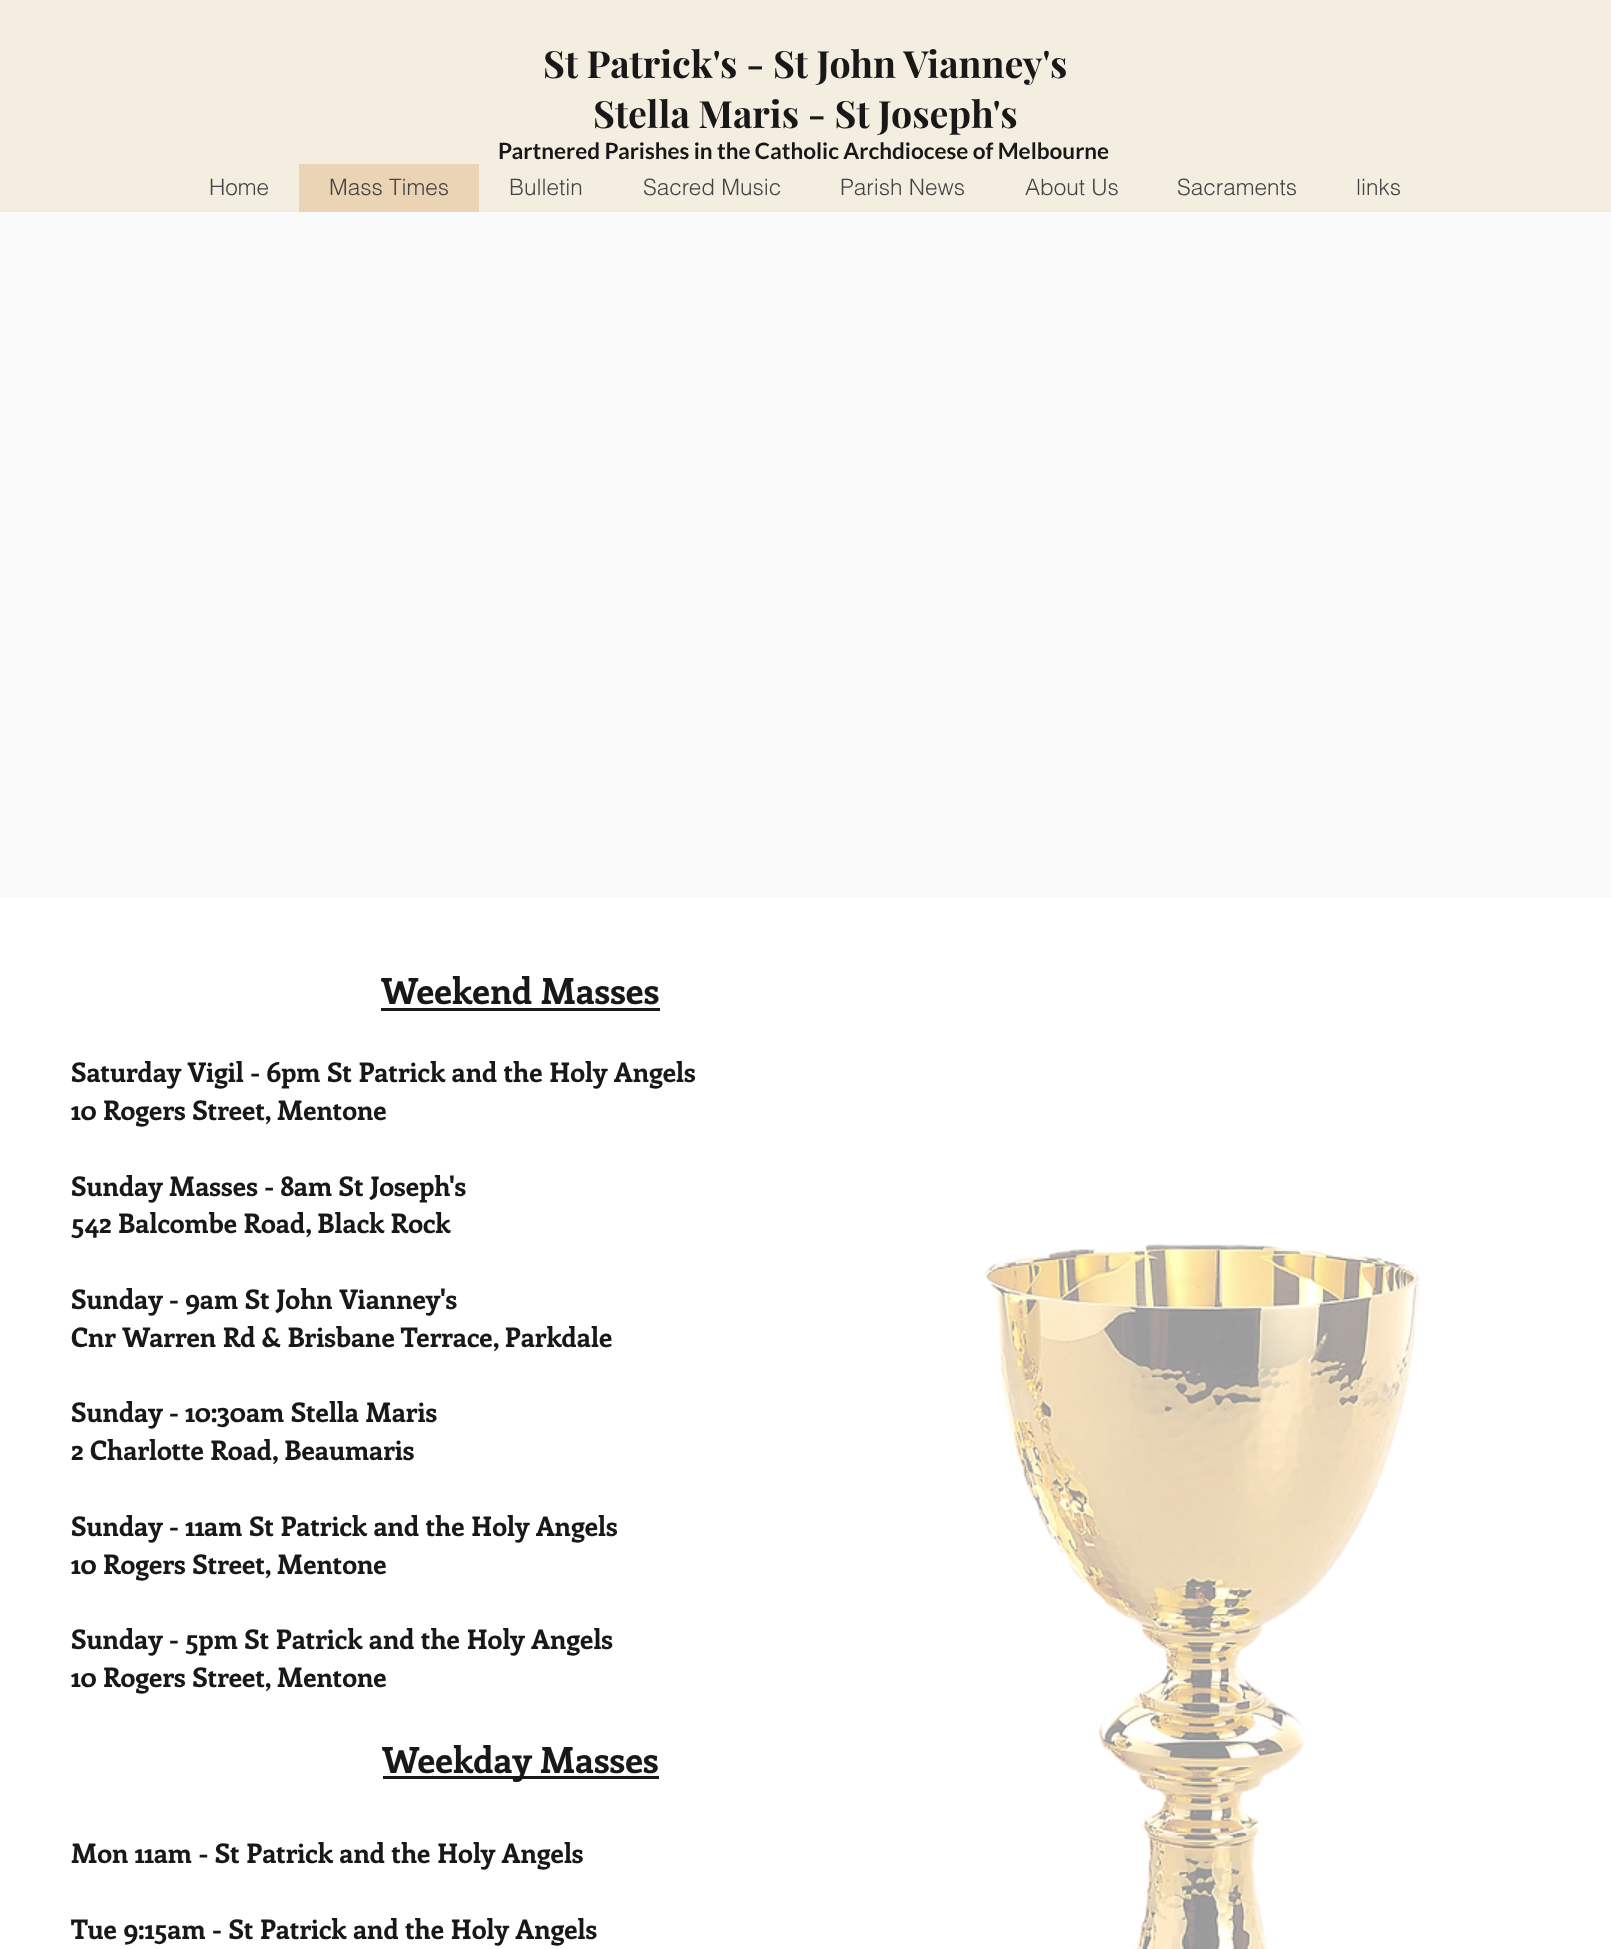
<?xml version="1.0" encoding="UTF-8"?>
<svg xmlns="http://www.w3.org/2000/svg" width="1611" height="1949">
    <rect width="100%" height="100%" fill="#F4EEE1"/>
    <text x="543" y="78" font-family="Playfair Display" font-size="37.5" font-weight="700" fill="#181818">St Patrick's - St John Vianney's</text>
    <text x="593" y="128" font-family="Playfair Display" font-size="37.5" font-weight="700" fill="#181818">Stella Maris - St Joseph's</text>
    <text x="498" y="159" font-family="Lato" font-size="22.5" font-weight="700" fill="#181818">Partnered Parishes in the Catholic Archdiocese of Melbourne</text>
    <text x="209" y="195" font-family="helvetica" font-size="22.5" font-weight="300" fill="#444444">Home</text>
    <rect x="299" y="164" width="180" height="48" fill="#EAD4B4"/>
    <text x="329" y="195" font-family="helvetica" font-size="22.5" font-weight="300" fill="#444444">Mass Times</text>
    <text x="509" y="195" font-family="helvetica" font-size="22.5" font-weight="300" fill="#444444">Bulletin</text>
    <text x="643" y="195" font-family="helvetica" font-size="22.5" font-weight="300" fill="#444444">Sacred Music</text>
    <text x="840" y="195" font-family="helvetica" font-size="22.5" font-weight="300" fill="#444444">Parish News</text>
    <text x="1025" y="195" font-family="helvetica" font-size="22.5" font-weight="300" fill="#444444">About Us</text>
    <text x="1177" y="195" font-family="helvetica" font-size="22.5" font-weight="300" fill="#444444">Sacraments</text>
    <text x="1356" y="195" font-family="helvetica" font-size="22.5" font-weight="300" fill="#444444">links</text>
    <rect x="0" y="212" width="1611" height="685" fill="#FAFAFA"/>
    <rect x="0" y="897" width="1611" height="1052" fill="#FFFFFF"/>
    <text x="381" y="1004" font-family="Enriqueta" font-size="36" font-weight="700" fill="#181818">Weekend Masses</text>
    <rect x="381" y="1008" width="279" height="3" fill="#181818"/>
    <text font-family="Enriqueta" font-size="27" font-weight="700" fill="#181818">
        <tspan x="71" y="1082">Saturday Vigil - 6pm St Patrick and the Holy Angels</tspan>
        <tspan x="71" y="1120">10 Rogers Street, Mentone</tspan>
    </text>
    <text font-family="Enriqueta" font-size="27" font-weight="700" fill="#181818">
        <tspan x="71" y="1196">Sunday Masses - 8am St Joseph's</tspan>
        <tspan x="71" y="1233">542 Balcombe Road, Black Rock</tspan>
    </text>
    <text font-family="Enriqueta" font-size="27" font-weight="700" fill="#181818">
        <tspan x="71" y="1309">Sunday - 9am St John Vianney's</tspan>
        <tspan x="71" y="1347">Cnr Warren Rd &amp; Brisbane Terrace, Parkdale</tspan>
    </text>
    <text font-family="Enriqueta" font-size="27" font-weight="700" fill="#181818">
        <tspan x="71" y="1422">Sunday - 10:30am Stella Maris</tspan>
        <tspan x="71" y="1460">2 Charlotte Road, Beaumaris</tspan>
    </text>
    <text font-family="Enriqueta" font-size="27" font-weight="700" fill="#181818">
        <tspan x="71" y="1536">Sunday - 11am St Patrick and the Holy Angels</tspan>
        <tspan x="71" y="1574">10 Rogers Street, Mentone</tspan>
    </text>
    <text font-family="Enriqueta" font-size="27" font-weight="700" fill="#181818">
        <tspan x="71" y="1649">Sunday - 5pm St Patrick and the Holy Angels</tspan>
        <tspan x="71" y="1687">10 Rogers Street, Mentone</tspan>
    </text>
    <rect x="383" y="1776" width="276" height="3" fill="#181818"/>
    <text x="382" y="1773" font-family="Enriqueta" font-size="36" font-weight="700" fill="#181818">Weekday Masses</text>
    <text x="71" y="1863" font-family="Enriqueta" font-size="27" font-weight="700" fill="#181818">Mon 11am - St Patrick and the Holy Angels</text>
    <text x="71" y="1939" font-family="Enriqueta" font-size="27" font-weight="700" fill="#181818">Tue 9:15am - St Patrick and the Holy Angels</text>
    <image x="984" y="1243" width="436" height="706" href="img_01.png"/>
</svg>
